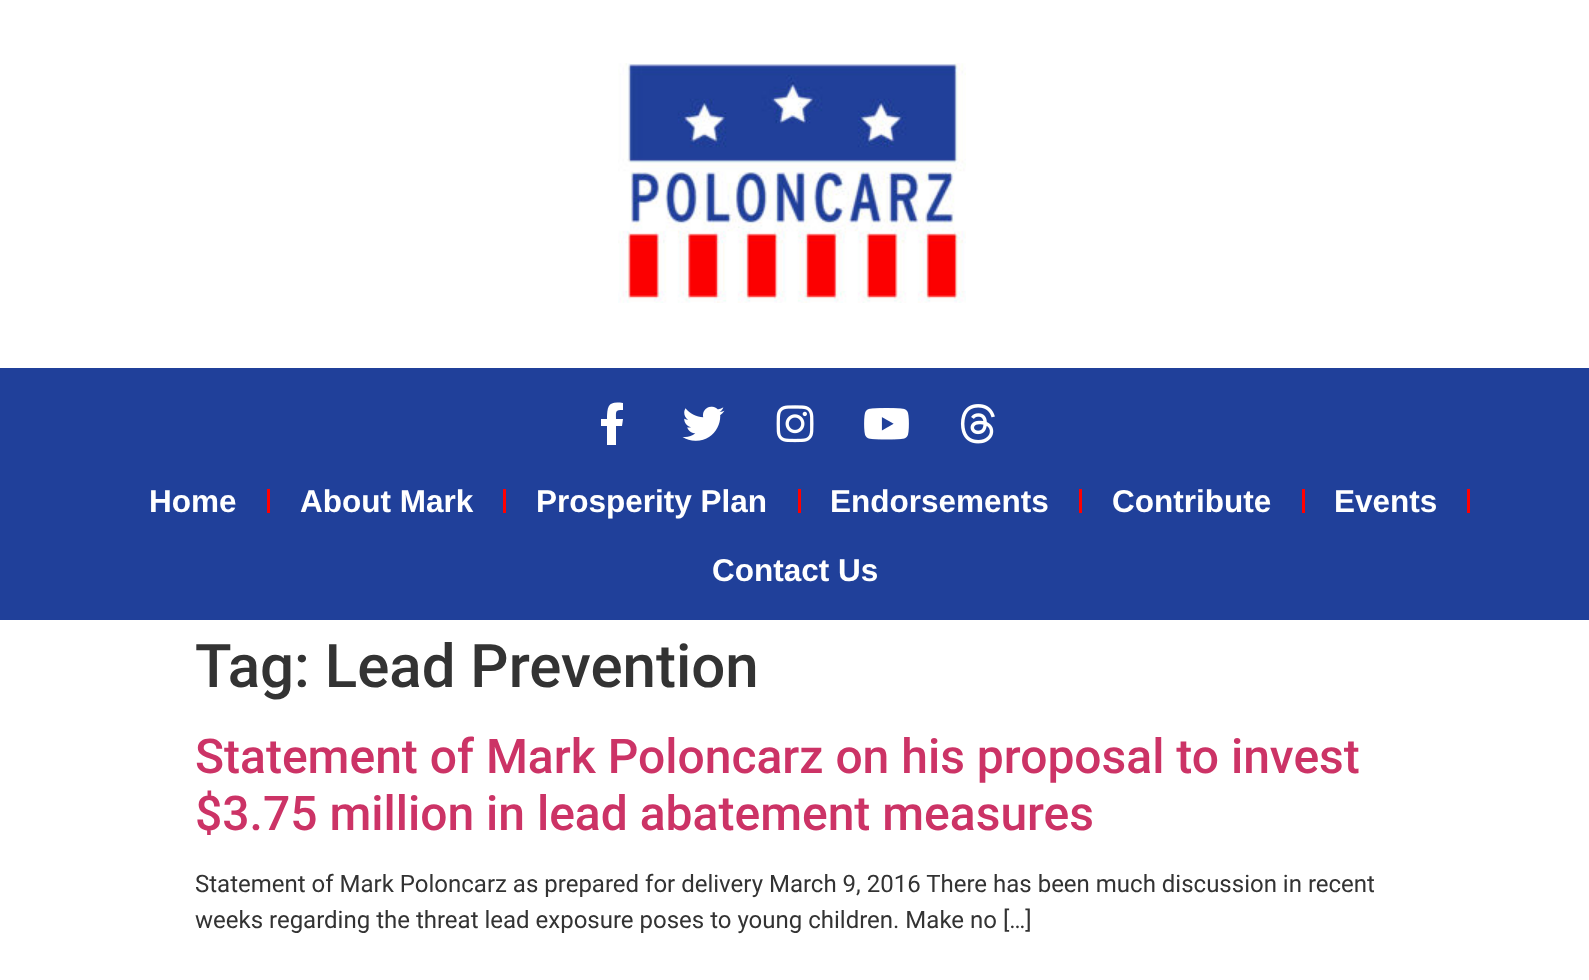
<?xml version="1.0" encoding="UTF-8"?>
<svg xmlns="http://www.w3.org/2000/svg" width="1589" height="980">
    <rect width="100%" height="100%" fill="#FFFFFF"/>
    <image x="618" y="63" width="348" height="240" href="img_01.png"/>
    <rect x="0" y="368" width="1589" height="252" fill="#20409A"/>
    <path d="M 622 426 H 616 V 445 H 607 V 426 H 601 V 419 H 607 C 607 405 609 401 623 403 V 410 C 615 410 616 411 616 419 H 623 Z" fill="#FFFFFF"/>
    <image x="682" y="406" width="43" height="35" href="img_02.png"/>
    <image x="776" y="405" width="38" height="38" href="img_03.png"/>
    <image x="864" y="408" width="45" height="32" href="img_04.png"/>
    <image x="960" y="404" width="35" height="40" href="img_05.png"/>
    <text x="149" y="512" font-family="Liberation Sans" font-size="31.5" font-weight="700" fill="#FFFFFF">Home</text>
    <rect x="267" y="489" width="3" height="24" fill="#FF0000"/>
    <text x="300" y="512" font-family="Liberation Sans" font-size="31.5" font-weight="700" fill="#FFFFFF">About Mark</text>
    <rect x="503" y="489" width="3" height="24" fill="#FF0000"/>
    <text x="536" y="512" font-family="Liberation Sans" font-size="31.5" font-weight="700" fill="#FFFFFF">Prosperity Plan</text>
    <rect x="798" y="489" width="3" height="24" fill="#FF0000"/>
    <text x="830" y="512" font-family="Liberation Sans" font-size="31.5" font-weight="700" fill="#FFFFFF">Endorsements</text>
    <rect x="1079" y="489" width="3" height="24" fill="#FF0000"/>
    <text x="1112" y="512" font-family="Liberation Sans" font-size="31.5" font-weight="700" fill="#FFFFFF">Contribute</text>
    <rect x="1302" y="489" width="3" height="24" fill="#FF0000"/>
    <text x="1334" y="512" font-family="Liberation Sans" font-size="31.5" font-weight="700" fill="#FFFFFF">Events</text>
    <rect x="1467" y="489" width="3" height="24" fill="#FF0000"/>
    <text x="712" y="581" font-family="Liberation Sans" font-size="31.5" font-weight="700" fill="#FFFFFF">Contact Us</text>
    <text x="195" y="687" font-family="Roboto" font-size="60" font-weight="500" fill="#333333">Tag: Lead Prevention</text>
    <text font-family="Roboto" font-size="48" font-weight="500" fill="#CC3366">
        <tspan x="195" y="773">Statement of Mark Poloncarz on his proposal to invest</tspan>
        <tspan x="195" y="830">$3.75 million in lead abatement measures</tspan>
    </text>
    <text font-family="Roboto" font-size="24" fill="#333333">
        <tspan x="195" y="892">Statement of Mark Poloncarz as prepared for delivery March 9, 2016 There has been much discussion in recent</tspan>
        <tspan x="195" y="928">weeks regarding the threat lead exposure poses to young children. Make no […]</tspan>
    </text>
</svg>
